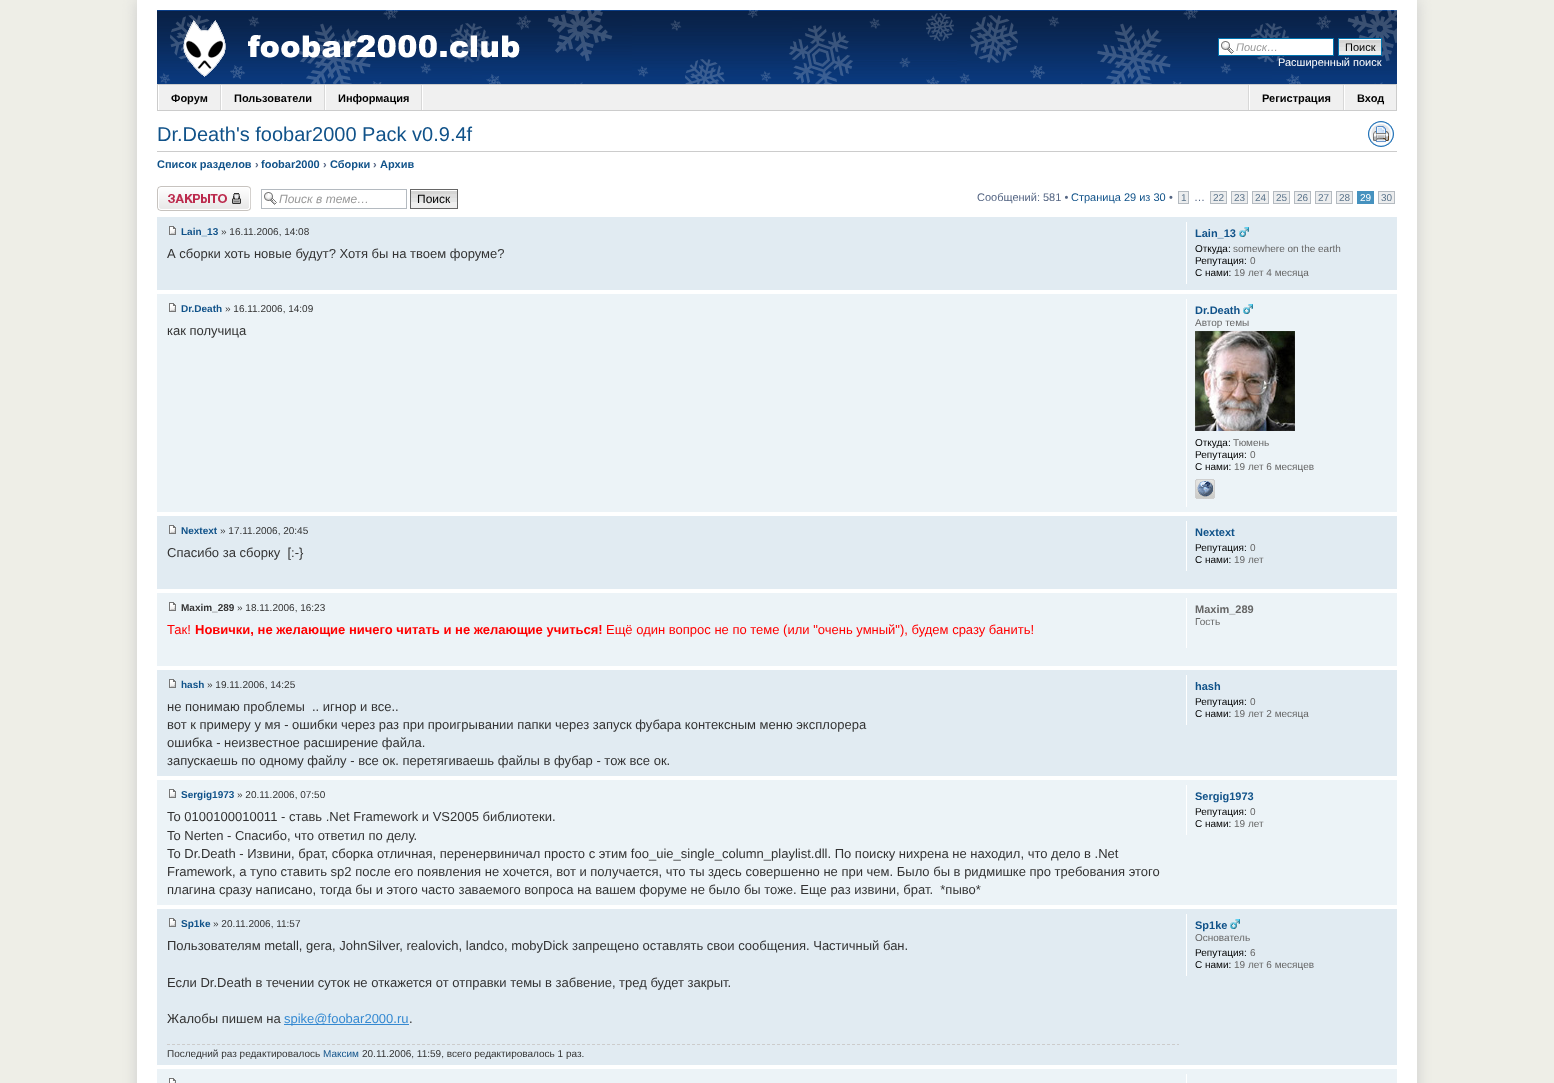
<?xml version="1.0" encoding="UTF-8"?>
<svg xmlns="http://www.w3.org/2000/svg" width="1554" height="1083">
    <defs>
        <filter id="blur1" x="-50%" y="-200%" width="200%" height="500%"><feGaussianBlur stdDeviation="7.5"/></filter>
    </defs>
    <rect width="100%" height="100%" fill="#EEEEE7"/>
    <rect x="137" y="0" width="1280" height="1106" fill="#CCCCCC" filter="url(#blur1)"/>
    <rect x="137" y="0" width="1280" height="1083" fill="#FFFFFF"/>
    <image x="157" y="10" width="1240" height="74" href="img_01.png"/>
    <image x="183" y="20" width="337" height="57" href="img_02.png"/>
    <rect x="1219" y="39" width="114" height="16" fill="#FFFFFF"/>
    <image x="1221" y="41" width="13" height="13" href="img_03.png"/>
    <rect x="1218.5" y="38.5" width="115" height="17" fill="none" stroke="#0075B0"/>
    <text x="1236" y="51" font-family="Liberation Sans" font-size="11" font-style="italic" fill="#999999">Поиск…</text>
    <image x="1339" y="39" width="42" height="16" href="img_04.png"/>
    <rect x="1338.5" y="38.5" width="43" height="17" fill="none" stroke="#0075B0"/>
    <text x="1345" y="51" font-family="Liberation Sans" font-size="11" fill="#000000">Поиск</text>
    <text x="1278" y="66" font-family="Liberation Sans" font-size="11" fill="#FFFFFF">Расширенный поиск</text>
    <rect x="159" y="85" width="1237" height="25" fill="#F0F0F0"/>
    <rect x="157.5" y="84.5" width="1239" height="26" fill="none" stroke="#CCCCCC"/>
    <rect x="220" y="85" width="1" height="25" fill="#D8D8D8"/>
    <text x="171" y="102" font-family="Liberation Sans" font-size="11" font-weight="700" fill="#000000">Форум</text>
    <rect x="324" y="85" width="1" height="25" fill="#D8D8D8"/>
    <rect x="221" y="85" width="1" height="25" fill="#FFFFFF"/>
    <text x="234" y="102" font-family="Liberation Sans" font-size="11" font-weight="700" fill="#000000">Пользователи</text>
    <rect x="421" y="85" width="1" height="25" fill="#D8D8D8"/>
    <rect x="325" y="85" width="1" height="25" fill="#FFFFFF"/>
    <text x="338" y="102" font-family="Liberation Sans" font-size="11" font-weight="700" fill="#000000">Информация</text>
    <rect x="422" y="85" width="1" height="25" fill="#FFFFFF"/>
    <rect x="1248" y="85" width="1" height="25" fill="#D8D8D8"/>
    <rect x="1343" y="85" width="1" height="25" fill="#D8D8D8"/>
    <rect x="1249" y="85" width="1" height="25" fill="#FFFFFF"/>
    <text x="1262" y="102" font-family="Liberation Sans" font-size="11" font-weight="700" fill="#000000">Регистрация</text>
    <rect x="1344" y="85" width="1" height="25" fill="#FFFFFF"/>
    <text x="1357" y="102" font-family="Liberation Sans" font-size="11" font-weight="700" fill="#000000">Вход</text>
    <text x="157" y="141" font-family="Liberation Sans" font-size="20" fill="#105289">Dr.Death's foobar2000 Pack v0.9.4f</text>
    <image x="1368" y="121" width="26" height="26" href="img_05.png"/>
    <rect x="157" y="151" width="1240" height="1" fill="#CCCCCC"/>
    <text x="157" y="168" font-family="Liberation Sans" font-size="11" font-weight="700" fill="#105289">Список разделов</text>
    <text x="255" y="168" font-family="Liberation Sans" font-size="11" font-weight="700" fill="#536482">›</text>
    <text x="261" y="168" font-family="Liberation Sans" font-size="11" font-weight="700" fill="#105289">foobar2000</text>
    <text x="323" y="168" font-family="Liberation Sans" font-size="11" font-weight="700" fill="#536482">›</text>
    <text x="330" y="168" font-family="Liberation Sans" font-size="11" font-weight="700" fill="#105289">Сборки</text>
    <text x="373" y="168" font-family="Liberation Sans" font-size="11" font-weight="700" fill="#536482">›</text>
    <text x="380" y="168" font-family="Liberation Sans" font-size="11" font-weight="700" fill="#105289">Архив</text>
    <image x="157" y="186" width="94" height="25" href="img_06.png"/>
    <image x="264" y="192" width="13" height="13" href="img_03.png"/>
    <rect x="261.5" y="189.5" width="145" height="19" fill="none" stroke="#B4BAC0"/>
    <text x="279" y="203" font-family="Liberation Sans" font-size="12" font-style="italic" fill="#999999">Поиск в теме…</text>
    <image x="411" y="190" width="46" height="18" href="img_07.png"/>
    <rect x="410.5" y="189.5" width="47" height="19" fill="none" stroke="#666666"/>
    <text x="417" y="203" font-family="Liberation Sans" font-size="12" fill="#000000">Поиск</text>
    <text x="977" y="201" font-family="Liberation Sans" font-size="11" fill="#536482">Сообщений: 581 •</text>
    <text x="1071" y="201" font-family="Liberation Sans" font-size="11" fill="#105289">Страница 29 из 30</text>
    <text x="1169" y="201" font-family="Liberation Sans" font-size="11" fill="#536482">•</text>
    <rect x="1178.5" y="191.5" width="10" height="12" fill="#ECEDEE" stroke="#B4BAC0"/>
    <text x="1181" y="201" font-family="Liberation Sans" font-size="10" fill="#5C758C">1</text>
    <rect x="1210.5" y="191.5" width="16" height="12" fill="#ECEDEE" stroke="#B4BAC0"/>
    <text x="1213" y="201" font-family="Liberation Sans" font-size="10" fill="#5C758C">22</text>
    <rect x="1231.5" y="191.5" width="16" height="12" fill="#ECEDEE" stroke="#B4BAC0"/>
    <text x="1234" y="201" font-family="Liberation Sans" font-size="10" fill="#5C758C">23</text>
    <rect x="1252.5" y="191.5" width="16" height="12" fill="#ECEDEE" stroke="#B4BAC0"/>
    <text x="1255" y="201" font-family="Liberation Sans" font-size="10" fill="#5C758C">24</text>
    <rect x="1273.5" y="191.5" width="16" height="12" fill="#ECEDEE" stroke="#B4BAC0"/>
    <text x="1276" y="201" font-family="Liberation Sans" font-size="10" fill="#5C758C">25</text>
    <rect x="1294.5" y="191.5" width="16" height="12" fill="#ECEDEE" stroke="#B4BAC0"/>
    <text x="1297" y="201" font-family="Liberation Sans" font-size="10" fill="#5C758C">26</text>
    <rect x="1315.5" y="191.5" width="16" height="12" fill="#ECEDEE" stroke="#B4BAC0"/>
    <text x="1318" y="201" font-family="Liberation Sans" font-size="10" fill="#5C758C">27</text>
    <rect x="1336.5" y="191.5" width="16" height="12" fill="#ECEDEE" stroke="#B4BAC0"/>
    <text x="1339" y="201" font-family="Liberation Sans" font-size="10" fill="#5C758C">28</text>
    <rect x="1357" y="191" width="17" height="13" fill="#4692BF"/>
    <text x="1360" y="201" font-family="Liberation Sans" font-size="10" fill="#FFFFFF">29</text>
    <rect x="1378.5" y="191.5" width="16" height="12" fill="#ECEDEE" stroke="#B4BAC0"/>
    <text x="1381" y="201" font-family="Liberation Sans" font-size="10" fill="#5C758C">30</text>
    <text x="1194" y="201" font-family="Liberation Sans" font-size="11" fill="#536482">…</text>
    <rect x="157" y="217" width="1240" height="73" fill="#E1EBF2"/>
    <image x="169" y="226" width="7" height="9" href="img_08.png"/>
    <text x="181" y="235" font-family="Liberation Sans" font-size="10" font-weight="700" fill="#105289">Lain_13</text>
    <text x="221" y="235" font-family="Liberation Sans" font-size="10" fill="#333333">» 16.11.2006, 14:08</text>
    <text x="167" y="258" font-family="Liberation Sans" font-size="13" fill="#333333">А сборки хоть новые будут? Хотя бы на твоем форуме?</text>
    <rect x="1186" y="222" width="1" height="62" fill="#FFFFFF"/>
    <text x="1195" y="237" font-family="Liberation Sans" font-size="11" font-weight="700" fill="#105289">Lain_13</text>
    <image x="1239" y="227" width="10" height="10" href="img_09.png"/>
    <text x="1195" y="252" font-family="Liberation Sans" font-size="10" fill="#000000">Откуда:</text>
    <text x="1233" y="252" font-family="Liberation Sans" font-size="10" fill="#666666">somewhere on the earth</text>
    <text x="1195" y="264" font-family="Liberation Sans" font-size="10" fill="#000000">Репутация:</text>
    <text x="1250" y="264" font-family="Liberation Sans" font-size="10" fill="#666666">0</text>
    <text x="1195" y="276" font-family="Liberation Sans" font-size="10" fill="#000000">С нами:</text>
    <text x="1234" y="276" font-family="Liberation Sans" font-size="10" fill="#666666">19 лет 4 месяца</text>
    <rect x="157" y="294" width="1240" height="218" fill="#ECF3F7"/>
    <image x="169" y="303" width="7" height="9" href="img_10.png"/>
    <text x="181" y="312" font-family="Liberation Sans" font-size="10" font-weight="700" fill="#105289">Dr.Death</text>
    <text x="225" y="312" font-family="Liberation Sans" font-size="10" fill="#333333">» 16.11.2006, 14:09</text>
    <text x="167" y="335" font-family="Liberation Sans" font-size="13" fill="#333333">как получица</text>
    <rect x="1186" y="299" width="1" height="208" fill="#FFFFFF"/>
    <text x="1195" y="314" font-family="Liberation Sans" font-size="11" font-weight="700" fill="#105289">Dr.Death</text>
    <image x="1243" y="304" width="10" height="10" href="img_11.png"/>
    <text x="1195" y="326" font-family="Liberation Sans" font-size="10" fill="#666666">Автор темы</text>
    <image x="1195" y="331" width="100" height="100" href="img_12.png"/>
    <text x="1195" y="446" font-family="Liberation Sans" font-size="10" fill="#000000">Откуда:</text>
    <text x="1233" y="446" font-family="Liberation Sans" font-size="10" fill="#666666">Тюмень</text>
    <text x="1195" y="458" font-family="Liberation Sans" font-size="10" fill="#000000">Репутация:</text>
    <text x="1250" y="458" font-family="Liberation Sans" font-size="10" fill="#666666">0</text>
    <text x="1195" y="470" font-family="Liberation Sans" font-size="10" fill="#000000">С нами:</text>
    <text x="1234" y="470" font-family="Liberation Sans" font-size="10" fill="#666666">19 лет 6 месяцев</text>
    <image x="1195" y="479" width="20" height="20" href="img_13.png"/>
    <rect x="157" y="516" width="1240" height="73" fill="#E1EBF2"/>
    <image x="169" y="525" width="7" height="9" href="img_08.png"/>
    <text x="181" y="534" font-family="Liberation Sans" font-size="10" font-weight="700" fill="#105289">Nextext</text>
    <text x="220" y="534" font-family="Liberation Sans" font-size="10" fill="#333333">» 17.11.2006, 20:45</text>
    <text x="167" y="557" font-family="Liberation Sans" font-size="13" fill="#333333" xml:space="preserve">Спасибо за сборку  [:-}</text>
    <rect x="1186" y="521" width="1" height="50" fill="#FFFFFF"/>
    <text x="1195" y="536" font-family="Liberation Sans" font-size="11" font-weight="700" fill="#105289">Nextext</text>
    <text x="1195" y="551" font-family="Liberation Sans" font-size="10" fill="#000000">Репутация:</text>
    <text x="1250" y="551" font-family="Liberation Sans" font-size="10" fill="#666666">0</text>
    <text x="1195" y="563" font-family="Liberation Sans" font-size="10" fill="#000000">С нами:</text>
    <text x="1234" y="563" font-family="Liberation Sans" font-size="10" fill="#666666">19 лет</text>
    <rect x="157" y="593" width="1240" height="73" fill="#ECF3F7"/>
    <image x="169" y="602" width="7" height="9" href="img_10.png"/>
    <text x="181" y="611" font-family="Liberation Sans" font-size="10" font-weight="700" fill="#333333">Maxim_289</text>
    <text x="237" y="611" font-family="Liberation Sans" font-size="10" fill="#333333">» 18.11.2006, 16:23</text>
    <text x="167" y="634" font-family="Liberation Sans" font-size="13" fill="#FF0000">Так!</text>
    <text x="195" y="634" font-family="Liberation Sans" font-size="13" font-weight="700" fill="#FF0000">Новички, не желающие ничего читать и не желающие учиться!</text>
    <text x="606" y="634" font-family="Liberation Sans" font-size="13" fill="#FF0000">Ещё один вопрос не по теме (или "очень умный"), будем сразу банить!</text>
    <rect x="1186" y="598" width="1" height="50" fill="#FFFFFF"/>
    <text x="1195" y="613" font-family="Liberation Sans" font-size="11" font-weight="700" fill="#666666">Maxim_289</text>
    <text x="1195" y="625" font-family="Liberation Sans" font-size="10" fill="#666666">Гость</text>
    <rect x="157" y="670" width="1240" height="106" fill="#E1EBF2"/>
    <image x="169" y="679" width="7" height="9" href="img_08.png"/>
    <text x="181" y="688" font-family="Liberation Sans" font-size="10" font-weight="700" fill="#105289">hash</text>
    <text x="207" y="688" font-family="Liberation Sans" font-size="10" fill="#333333">» 19.11.2006, 14:25</text>
    <text font-family="Liberation Sans" font-size="13" fill="#333333" xml:space="preserve"><tspan x="167" y="711">не понимаю проблемы  .. игнор и все..</tspan><tspan x="167" y="729">вот к примеру у мя - ошибки через раз при проигрывании папки через запуск фубара контексным меню эксплорера</tspan><tspan x="167" y="747">ошибка - неизвестное расширение файла.</tspan><tspan x="167" y="765">запускаешь по одному файлу - все ок. перетягиваешь файлы в фубар - тож все ок.</tspan></text>
    <rect x="1186" y="675" width="1" height="50" fill="#FFFFFF"/>
    <text x="1195" y="690" font-family="Liberation Sans" font-size="11" font-weight="700" fill="#105289">hash</text>
    <text x="1195" y="705" font-family="Liberation Sans" font-size="10" fill="#000000">Репутация:</text>
    <text x="1250" y="705" font-family="Liberation Sans" font-size="10" fill="#666666">0</text>
    <text x="1195" y="717" font-family="Liberation Sans" font-size="10" fill="#000000">С нами:</text>
    <text x="1234" y="717" font-family="Liberation Sans" font-size="10" fill="#666666">19 лет 2 месяца</text>
    <rect x="157" y="780" width="1240" height="125" fill="#ECF3F7"/>
    <image x="169" y="789" width="7" height="9" href="img_10.png"/>
    <text x="181" y="798" font-family="Liberation Sans" font-size="10" font-weight="700" fill="#105289">Sergig1973</text>
    <text x="237" y="798" font-family="Liberation Sans" font-size="10" fill="#333333">» 20.11.2006, 07:50</text>
    <text font-family="Liberation Sans" font-size="13" fill="#333333" xml:space="preserve"><tspan x="167" y="821">To 0100100010011 - ставь .Net Framework и VS2005 библиотеки.</tspan><tspan x="167" y="840">To Nerten - Спасибо, что ответил по делу.</tspan><tspan x="167" y="858">To Dr.Death - Извини, брат, сборка отличная, перенервиничал просто с этим foo_uie_single_column_playlist.dll. По поиску нихрена не находил, что дело в .Net</tspan><tspan x="167" y="876">Framework, а тупо ставить sp2 после его появления не хочется, вот и получается, что ты здесь совершенно не при чем. Было бы в ридмишке про требования этого</tspan><tspan x="167" y="894">плагина сразу написано, тогда бы и этого часто заваемого вопроса на вашем форуме не было бы тоже. Еще раз извини, брат.  *пыво*</tspan></text>
    <rect x="1186" y="785" width="1" height="50" fill="#FFFFFF"/>
    <text x="1195" y="800" font-family="Liberation Sans" font-size="11" font-weight="700" fill="#105289">Sergig1973</text>
    <text x="1195" y="815" font-family="Liberation Sans" font-size="10" fill="#000000">Репутация:</text>
    <text x="1250" y="815" font-family="Liberation Sans" font-size="10" fill="#666666">0</text>
    <text x="1195" y="827" font-family="Liberation Sans" font-size="10" fill="#000000">С нами:</text>
    <text x="1234" y="827" font-family="Liberation Sans" font-size="10" fill="#666666">19 лет</text>
    <rect x="157" y="909" width="1240" height="156" fill="#E1EBF2"/>
    <image x="169" y="918" width="7" height="9" href="img_08.png"/>
    <text x="181" y="927" font-family="Liberation Sans" font-size="10" font-weight="700" fill="#105289">Sp1ke</text>
    <text x="213" y="927" font-family="Liberation Sans" font-size="10" fill="#333333">» 20.11.2006, 11:57</text>
    <text x="167" y="950" font-family="Liberation Sans" font-size="13" fill="#333333">Пользователям metall, gera, JohnSilver, realovich, landco, mobyDick запрещено оставлять свои сообщения. Частичный бан.</text>
    <text x="167" y="987" font-family="Liberation Sans" font-size="13" fill="#333333">Если Dr.Death в течении суток не откажется от отправки темы в забвение, тред будет закрыт.</text>
    <text x="167" y="1023" font-family="Liberation Sans" font-size="13" fill="#333333">Жалобы пишем на</text>
    <rect x="284" y="1024" width="125" height="1" fill="#368AD2"/>
    <text x="284" y="1023" font-family="Liberation Sans" font-size="13" fill="#368AD2">spike@foobar2000.ru</text>
    <text x="409" y="1023" font-family="Liberation Sans" font-size="13" fill="#333333">.</text>
    <path d="M 167 1044.5 H 1179" fill="none" stroke="#CCCCCC" stroke-dasharray="3 2"/>
    <text x="167" y="1057" font-family="Liberation Sans" font-size="10" fill="#333333">Последний раз редактировалось</text>
    <text x="323" y="1057" font-family="Liberation Sans" font-size="10" fill="#105289">Максим</text>
    <text x="362" y="1057" font-family="Liberation Sans" font-size="10" fill="#333333">20.11.2006, 11:59, всего редактировалось 1 раз.</text>
    <rect x="1186" y="914" width="1" height="62" fill="#FFFFFF"/>
    <text x="1195" y="929" font-family="Liberation Sans" font-size="11" font-weight="700" fill="#105289">Sp1ke</text>
    <image x="1230" y="919" width="10" height="10" href="img_09.png"/>
    <text x="1195" y="941" font-family="Liberation Sans" font-size="10" fill="#666666">Основатель</text>
    <text x="1195" y="956" font-family="Liberation Sans" font-size="10" fill="#000000">Репутация:</text>
    <text x="1250" y="956" font-family="Liberation Sans" font-size="10" fill="#666666">6</text>
    <text x="1195" y="968" font-family="Liberation Sans" font-size="10" fill="#000000">С нами:</text>
    <text x="1234" y="968" font-family="Liberation Sans" font-size="10" fill="#666666">19 лет 6 месяцев</text>
    <rect x="157" y="1069" width="1240" height="14" fill="#ECF3F7"/>
    <image x="169" y="1078" width="7" height="5" href="img_14.png"/>
    <rect x="1186" y="1074" width="1" height="9" fill="#FFFFFF"/>
</svg>
